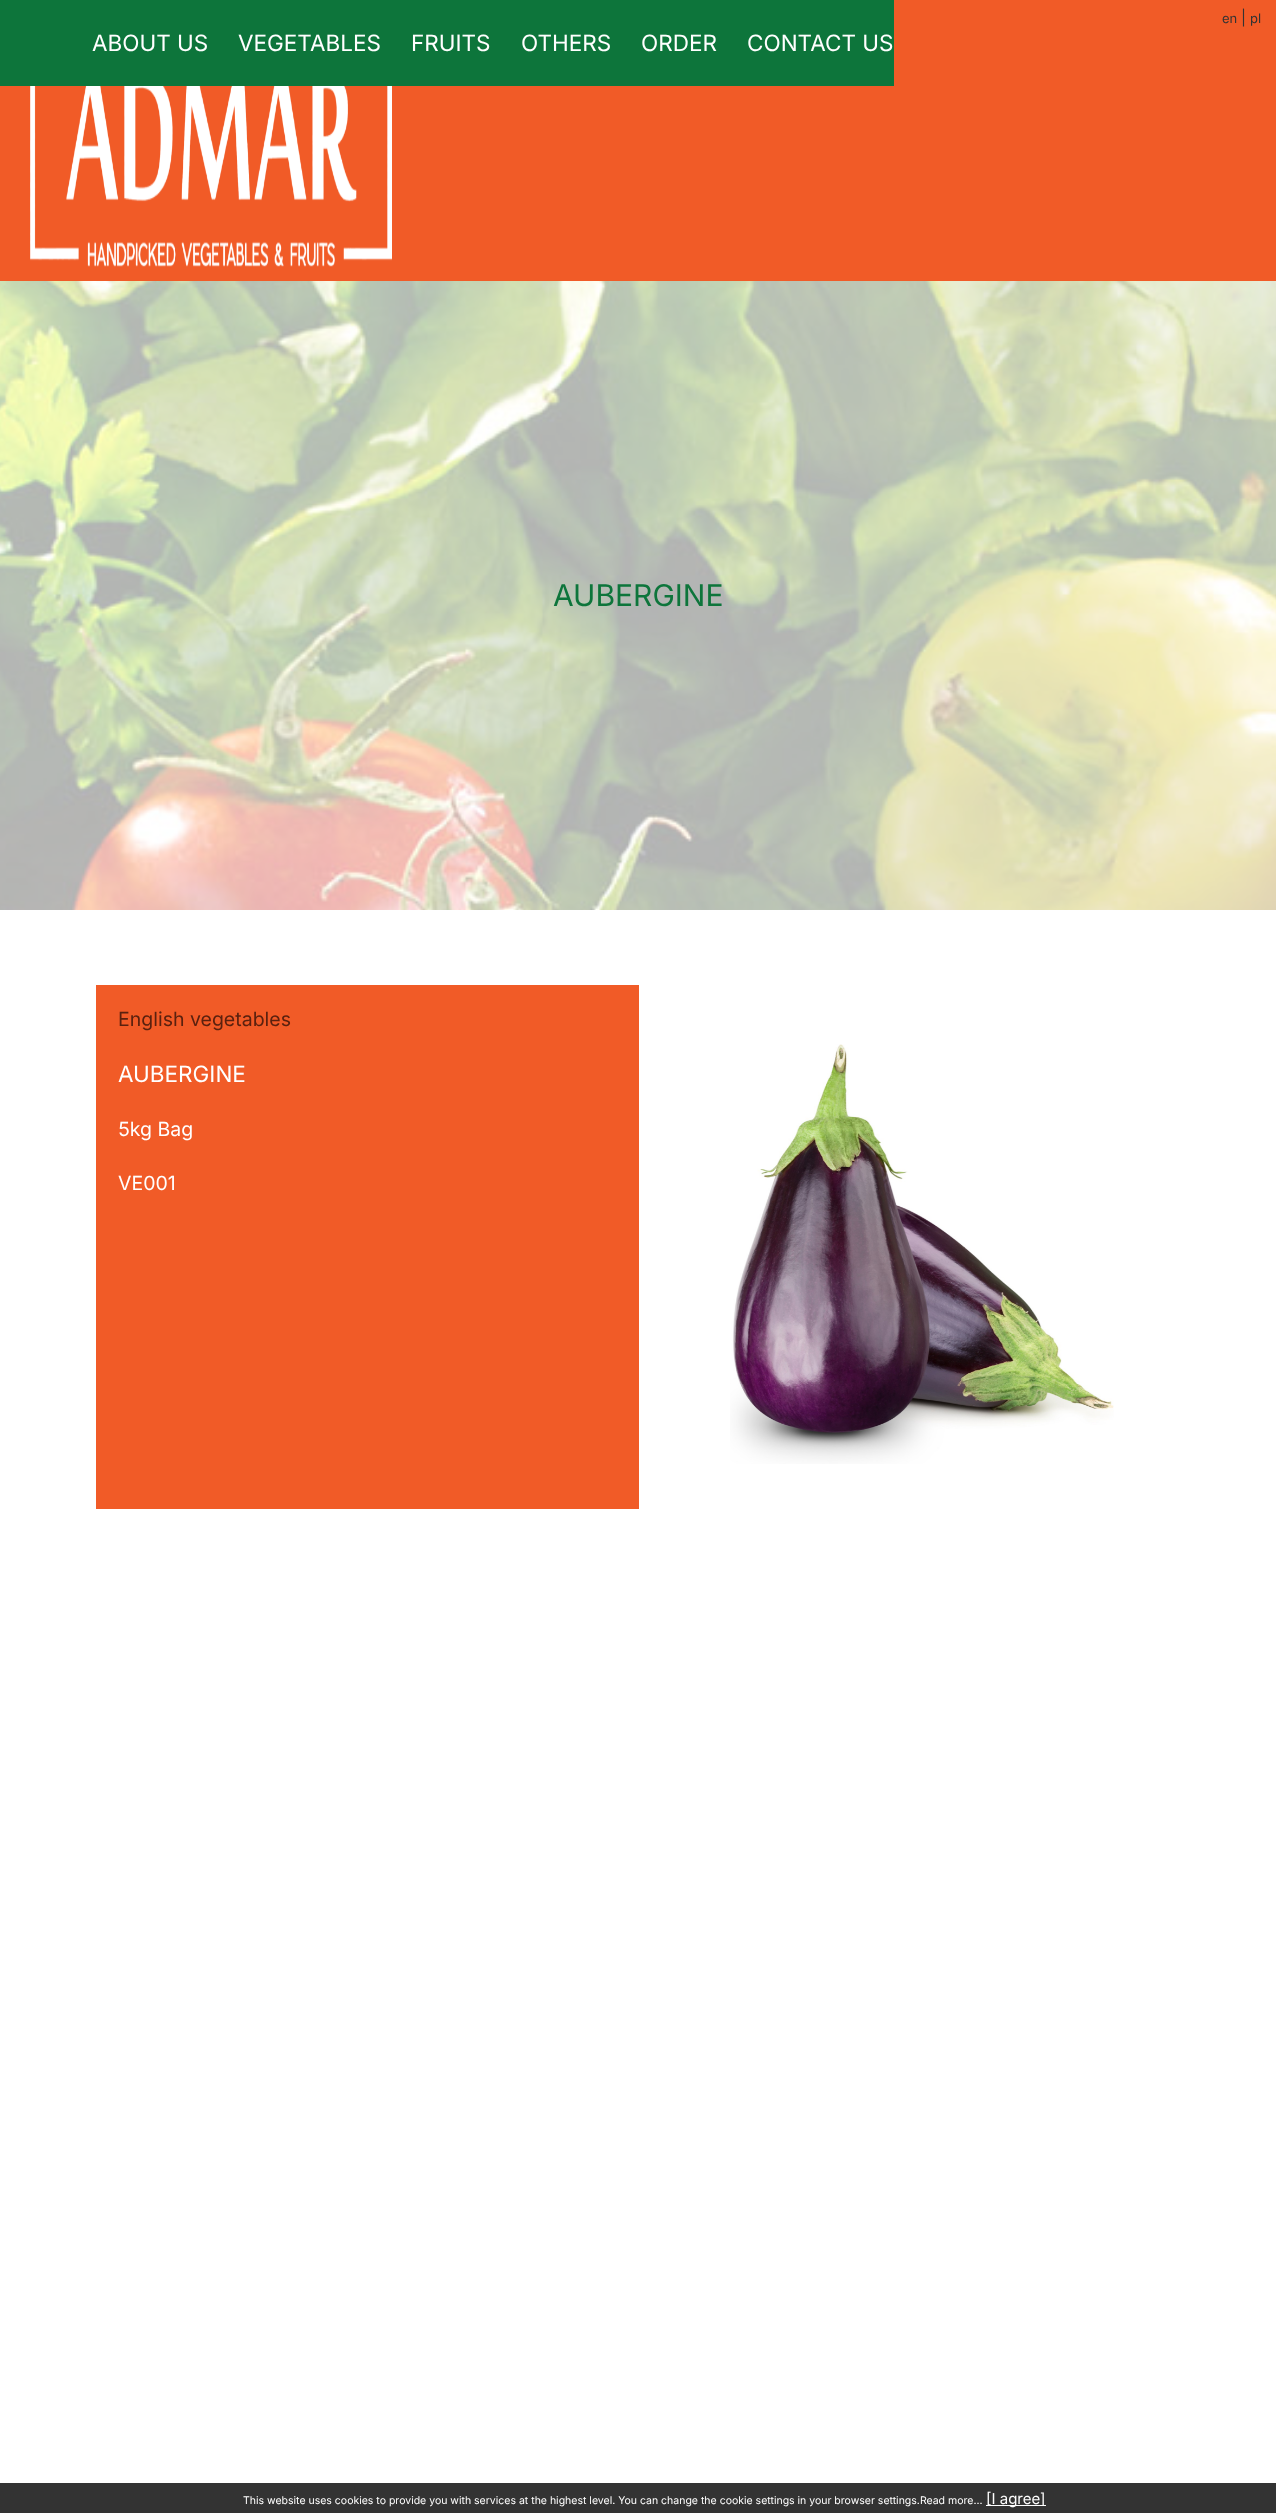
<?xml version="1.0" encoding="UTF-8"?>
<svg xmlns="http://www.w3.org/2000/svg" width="1276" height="2513">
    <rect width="100%" height="100%" fill="#FFFFFF"/>
    <rect x="0" y="0" width="1276" height="281" fill="#F15B27"/>
    <text x="1222" y="23" font-family="Inter" font-size="13" fill="#333333">en</text>
    <text x="1241" y="23" font-family="Inter" font-size="15" fill="#333333">|</text>
    <text x="1250" y="23" font-family="Inter" font-size="13" fill="#333333">pl</text>
    <rect x="0" y="0" width="894" height="86" fill="#0D753B"/>
    <text x="92" y="51" font-family="Inter" font-size="22.5" fill="#FFFFFF">ABOUT US</text>
    <text x="238" y="51" font-family="Inter" font-size="22.5" fill="#FFFFFF">VEGETABLES</text>
    <text x="411" y="51" font-family="Inter" font-size="22.5" fill="#FFFFFF">FRUITS</text>
    <text x="521" y="51" font-family="Inter" font-size="22.5" fill="#FFFFFF">OTHERS</text>
    <text x="641" y="51" font-family="Inter" font-size="22.5" fill="#FFFFFF">ORDER</text>
    <text x="747" y="51" font-family="Inter" font-size="22.5" fill="#FFFFFF">CONTACT US</text>
    <image x="30" y="86" width="362" height="181" href="img_01.png"/>
    <image x="0" y="281" width="1276" height="629" href="img_02.png"/>
    <text x="553" y="606" font-family="Inter" font-size="30" fill="#0D753B">AUBERGINE</text>
    <rect x="96" y="985" width="543" height="524" fill="#F15B27"/>
    <text x="118" y="1026" font-family="Inter" font-size="19.5" fill="#5A210F">English vegetables</text>
    <text x="118" y="1082" font-family="Inter" font-size="22.5" fill="#FFFFFF">AUBERGINE</text>
    <text x="118" y="1136" font-family="Inter" font-size="19.5" fill="#FFFFFF">5kg Bag</text>
    <text x="118" y="1190" font-family="Inter" font-size="19.5" fill="#FFFFFF">VE001</text>
    <image x="730" y="1044" width="384" height="420" href="img_03.png"/>
    <rect x="0" y="2483" width="1276" height="30" fill="#333333"/>
    <text x="243" y="2504" font-family="Inter" font-size="10.5" fill="#FFFFFF">This website uses cookies to provide you with services at the highest level. You can change the cookie settings in your browser settings.Read more...</text>
    <rect x="986" y="2505" width="60" height="1" fill="#FFFFFF"/>
    <text x="986" y="2504" font-family="Inter" font-size="15" fill="#FFFFFF">[I agree]</text>
</svg>
